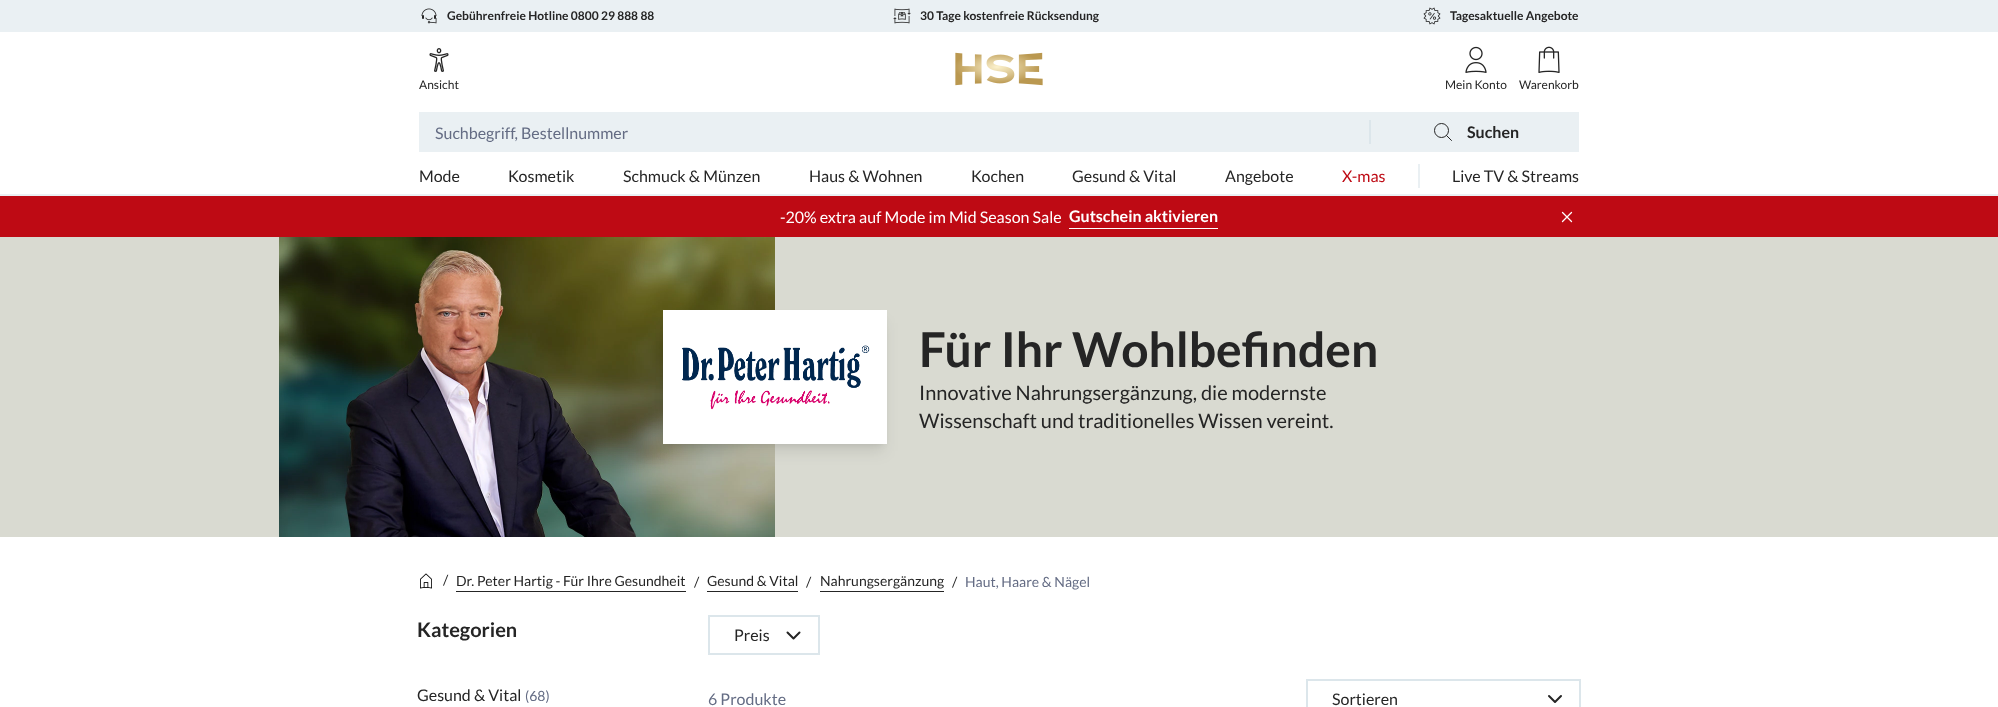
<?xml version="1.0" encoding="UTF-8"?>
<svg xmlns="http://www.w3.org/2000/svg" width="1998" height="707">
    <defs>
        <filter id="blur1" x="-50%" y="-200%" width="200%" height="500%"><feGaussianBlur stdDeviation="3"/></filter>
        <filter id="blur2" x="-50%" y="-200%" width="200%" height="500%"><feGaussianBlur stdDeviation="7.5"/></filter>
    </defs>
    <rect width="100%" height="100%" fill="#FFFFFF"/>
    <rect x="0" y="194" width="1998" height="2" fill="#EAF0F3"/>
    <rect x="0" y="0" width="1998" height="32" fill="#EAF0F3"/>
    <image x="421" y="8" width="16" height="16" href="img_01.png"/>
    <text x="447" y="20" font-family="Lato" font-size="12" font-weight="700" fill="#252525">Gebührenfreie Hotline 0800 29 888 88</text>
    <image x="893" y="8" width="18" height="16" href="img_02.png"/>
    <text x="920" y="20" font-family="Lato" font-size="12" font-weight="700" fill="#252525">30 Tage kostenfreie Rücksendung</text>
    <image x="1423" y="7" width="18" height="18" href="img_03.png"/>
    <text x="1450" y="20" font-family="Lato" font-size="12" font-weight="700" fill="#252525">Tagesaktuelle Angebote</text>
    <image x="429" y="48" width="20" height="24" href="img_04.png"/>
    <text x="419" y="89" font-family="Lato" font-size="12" fill="#252525">Ansicht</text>
    <image x="955" y="52" width="88" height="34" href="img_05.png"/>
    <image x="1465" y="46" width="22" height="27" href="img_06.png"/>
    <text x="1445" y="89" font-family="Lato" font-size="12" fill="#252525">Mein Konto</text>
    <image x="1538" y="46" width="22" height="27" href="img_07.png"/>
    <text x="1519" y="89" font-family="Lato" font-size="12" fill="#252525">Warenkorb</text>
    <rect x="419" y="112" width="1160" height="40" fill="#EAF0F3"/>
    <text x="435" y="139" font-family="Lato" font-size="16" fill="#646C84">Suchbegriff, Bestellnummer</text>
    <rect x="1369" y="120" width="2" height="24" fill="#DCE6EB"/>
    <circle cx="1441.5" cy="130.5" r="7" fill="none" stroke="#252525"/>
    <path d="M 1446.5 135.5 L 1451.5 140.5" fill="none" stroke="#252525" stroke-linecap="round" stroke-linejoin="round"/>
    <text x="1467" y="138" font-family="Lato" font-size="16" font-weight="700" fill="#252525">Suchen</text>
    <text x="419" y="182" font-family="Lato" font-size="16" fill="#252525">Mode</text>
    <text x="508" y="182" font-family="Lato" font-size="16" fill="#252525">Kosmetik</text>
    <text x="623" y="182" font-family="Lato" font-size="16" fill="#252525">Schmuck &amp; Münzen</text>
    <text x="809" y="182" font-family="Lato" font-size="16" fill="#252525">Haus &amp; Wohnen</text>
    <text x="971" y="182" font-family="Lato" font-size="16" fill="#252525">Kochen</text>
    <text x="1072" y="182" font-family="Lato" font-size="16" fill="#252525">Gesund &amp; Vital</text>
    <text x="1225" y="182" font-family="Lato" font-size="16" fill="#252525">Angebote</text>
    <text x="1342" y="182" font-family="Lato" font-size="16" fill="#BE0A14">X-mas</text>
    <rect x="1418" y="164" width="2" height="24" fill="#EAF0F3"/>
    <text x="1452" y="182" font-family="Lato" font-size="16" fill="#252525">Live TV &amp; Streams</text>
    <rect x="0" y="196" width="1998" height="41" fill="#BE0A14"/>
    <text x="780" y="223" font-family="Lato" font-size="16" fill="#FFFFFF">-20% extra auf Mode im Mid Season Sale</text>
    <rect x="1069" y="228" width="149" height="1" fill="#FFFFFF"/>
    <text x="1069" y="222" font-family="Lato" font-size="16" font-weight="700" fill="#FFFFFF">Gutschein aktivieren</text>
    <path d="M 1562.5 212.5 L 1571.5 221.5 M 1571.5 212.5 L 1562.5 221.5" fill="none" stroke="#FFFFFF" stroke-width="1.3" stroke-linecap="round"/>
    <rect x="0" y="237" width="1998" height="300" fill="#D9DAD1"/>
    <image x="279" y="237" width="496" height="300" href="img_08.png"/>
    <rect x="667" y="318" width="216" height="126" fill="#000000" fill-opacity="0.1" filter="url(#blur1)"/>
    <rect x="666" y="323" width="218" height="128" fill="#000000" fill-opacity="0.1" filter="url(#blur2)"/>
    <rect x="663" y="310" width="224" height="134" fill="#FFFFFF"/>
    <image x="682" y="345" width="188" height="65" href="img_09.png"/>
    <text x="919" y="367" font-family="Lato" font-size="48" font-weight="700" fill="#252525">Für Ihr Wohlbefinden</text>
    <text font-family="Lato" font-size="20" fill="#252525">
        <tspan x="919" y="400">Innovative Nahrungsergänzung, die modernste</tspan>
        <tspan x="919" y="428">Wissenschaft und traditionelles Wissen vereint.</tspan>
    </text>
    <image x="420" y="573" width="12" height="16" href="img_10.png"/>
    <text x="443" y="585" font-family="Lato" font-size="14" fill="#252525">/</text>
    <rect x="456" y="591" width="230" height="1" fill="#252525"/>
    <text x="456" y="586" font-family="Lato" font-size="14" fill="#252525">Dr. Peter Hartig - Für Ihre Gesundheit</text>
    <text x="694" y="587" font-family="Lato" font-size="14" fill="#252525">/</text>
    <rect x="707" y="591" width="91" height="1" fill="#252525"/>
    <text x="707" y="586" font-family="Lato" font-size="14" fill="#252525">Gesund &amp; Vital</text>
    <text x="806" y="587" font-family="Lato" font-size="14" fill="#252525">/</text>
    <rect x="820" y="591" width="124" height="1" fill="#252525"/>
    <text x="820" y="586" font-family="Lato" font-size="14" fill="#252525">Nahrungsergänzung</text>
    <text x="952" y="587" font-family="Lato" font-size="14" fill="#252525">/</text>
    <text x="965" y="587" font-family="Lato" font-size="14" fill="#646C84">Haut, Haare &amp; Nägel</text>
    <text x="417" y="637" font-family="Lato" font-size="20" font-weight="700" fill="#252525">Kategorien</text>
    <text x="417" y="701" font-family="Lato" font-size="16" fill="#252525">Gesund &amp; Vital</text>
    <text x="525" y="701" font-family="Lato" font-size="14" fill="#646C84">(68)</text>
    <rect x="709" y="616" width="110" height="38" fill="none" stroke="#DCE6EB" stroke-width="2"/>
    <text x="734" y="641" font-family="Lato" font-size="16" fill="#252525">Preis</text>
    <path d="M 799.5 632.5 L 793.5 638.5 L 787.5 632.5" fill="none" stroke="#252525" stroke-width="2" stroke-linecap="round" stroke-linejoin="round"/>
    <text x="708" y="705" font-family="Lato" font-size="16" fill="#646C84">6 Produkte</text>
    <rect x="1307" y="680" width="273" height="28" fill="none" stroke="#DCE6EB" stroke-width="2"/>
    <text x="1332" y="705" font-family="Lato" font-size="16" fill="#252525">Sortieren</text>
    <path d="M 1561 696 L 1555 702 L 1549 696" fill="none" stroke="#252525" stroke-width="2" stroke-linecap="round" stroke-linejoin="round"/>
</svg>
